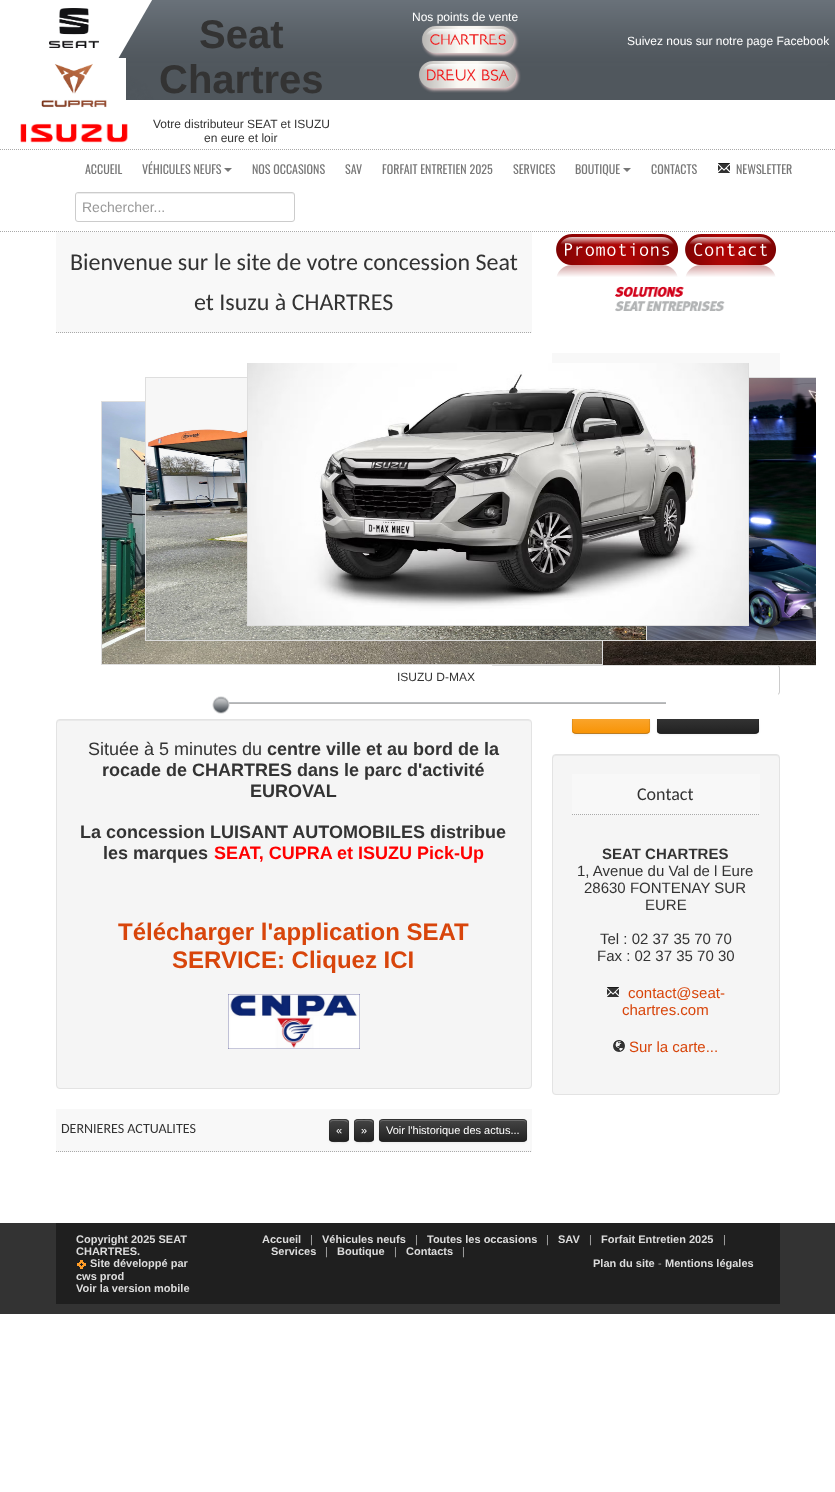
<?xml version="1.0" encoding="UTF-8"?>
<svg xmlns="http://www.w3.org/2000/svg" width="835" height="1492">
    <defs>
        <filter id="blur1" x="-50%" y="-200%" width="200%" height="500%"><feGaussianBlur stdDeviation="1"/></filter>
        <clipPath id="clip1"><rect x="572" y="704" width="78" height="30" rx="4"/></clipPath>
        <linearGradient id="g1" gradientUnits="userSpaceOnUse" x1="611" y1="705" x2="611" y2="733"><stop offset="0" stop-color="#FBB450"/><stop offset="1" stop-color="#F89406"/></linearGradient>
        <clipPath id="clip2"><rect x="657" y="704" width="102" height="30" rx="4"/></clipPath>
        <linearGradient id="g2" gradientUnits="userSpaceOnUse" x1="708" y1="705" x2="708" y2="733"><stop offset="0" stop-color="#444444"/><stop offset="1" stop-color="#222222"/></linearGradient>
        <clipPath id="clip3"><rect x="56" y="363" width="760" height="356"/></clipPath>
        <clipPath id="clip4"><rect x="329" y="1119" width="20" height="23" rx="4"/></clipPath>
        <linearGradient id="g3" gradientUnits="userSpaceOnUse" x1="339" y1="1120" x2="339" y2="1141"><stop offset="0" stop-color="#444444"/><stop offset="1" stop-color="#222222"/></linearGradient>
        <clipPath id="clip5"><rect x="354" y="1119" width="20" height="23" rx="4"/></clipPath>
        <linearGradient id="g4" gradientUnits="userSpaceOnUse" x1="364" y1="1120" x2="364" y2="1141"><stop offset="0" stop-color="#444444"/><stop offset="1" stop-color="#222222"/></linearGradient>
        <clipPath id="clip6"><rect x="379" y="1119" width="148" height="23" rx="4"/></clipPath>
        <linearGradient id="g5" gradientUnits="userSpaceOnUse" x1="453" y1="1120" x2="453" y2="1141"><stop offset="0" stop-color="#444444"/><stop offset="1" stop-color="#222222"/></linearGradient>
    </defs>
    <rect width="100%" height="100%" fill="#FFFFFF"/>
    <image x="92" y="0" width="743" height="100" href="img_01.png"/>
    <text x="412" y="21" font-family="Liberation Sans" font-size="12" fill="#FFFFFF">Nos points de vente</text>
    <image x="421" y="25" width="98" height="33" href="img_02.png"/>
    <image x="418" y="60" width="103" height="33" href="img_03.png"/>
    <image x="49" y="8" width="50" height="40" href="img_04.png"/>
    <image x="41" y="58" width="85" height="50" href="img_05.png"/>
    <image x="20" y="123" width="108" height="20" href="img_06.png"/>
    <text x="199" y="48" font-family="Liberation Sans" font-size="40" font-weight="700" fill="#333333">Seat</text>
    <text x="159" y="93" font-family="Liberation Sans" font-size="40" font-weight="700" fill="#333333">Chartres</text>
    <text x="153" y="128" font-family="Liberation Sans" font-size="12" fill="#333333">Votre distributeur SEAT et ISUZU</text>
    <text x="204" y="142" font-family="Liberation Sans" font-size="12" fill="#333333">en eure et loir</text>
    <text x="627" y="45" font-family="Liberation Sans" font-size="12" fill="#FFFFFF">Suivez nous sur notre page Facebook</text>
    <path d="M 0 149.5 H 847" fill="none" stroke="#A9A9A9" stroke-dasharray="1 1"/>
    <path d="M 0 231.5 H 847" fill="none" stroke="#A9A9A9" stroke-dasharray="1 1"/>
    <text x="85" y="174" font-family="Oswald" font-size="12" fill="#777777">ACCUEIL</text>
    <text x="142" y="174" font-family="Oswald" font-size="12" fill="#777777">VÉHICULES NEUFS</text>
    <path d="M 224 168 H 232 L 228 172 Z" fill="#777777"/>
    <text x="252" y="174" font-family="Oswald" font-size="12" fill="#777777">NOS OCCASIONS</text>
    <text x="345" y="174" font-family="Oswald" font-size="12" fill="#777777">SAV</text>
    <text x="382" y="174" font-family="Oswald" font-size="12" fill="#777777">FORFAIT ENTRETIEN 2025</text>
    <text x="513" y="174" font-family="Oswald" font-size="12" fill="#777777">SERVICES</text>
    <text x="575" y="174" font-family="Oswald" font-size="12" fill="#777777">BOUTIQUE</text>
    <path d="M 623 168 H 631 L 627 172 Z" fill="#777777"/>
    <text x="651" y="174" font-family="Oswald" font-size="12" fill="#777777">CONTACTS</text>
    <image x="718" y="163" width="12" height="10" href="img_07.png"/>
    <text x="736" y="174" font-family="Oswald" font-size="12" fill="#777777">NEWSLETTER</text>
    <path d="M 78 194 H 292 C 293 194 294 195 294 196 C 294 195 294 193 292 193 H 78 L 77 194 L 76 196 C 76 195 77 194 78 194 Z" fill="#ECECEC"/>
    <rect x="75.5" y="192.5" width="219" height="29" rx="2.5" fill="none" stroke="#CCCCCC"/>
    <text x="82" y="212" font-family="Liberation Sans" font-size="14" fill="#999999">Rechercher...</text>
    <rect x="56" y="232" width="476" height="101" fill="#F8F8F8"/>
    <path d="M 56 332.5 H 532" fill="none" stroke="#A9A9A9" stroke-dasharray="1 1"/>
    <text x="70" y="270" font-family="Carlito" font-size="24" fill="#333333">Bienvenue sur le site de votre concession Seat</text>
    <text x="194" y="310" font-family="Carlito" font-size="24" fill="#333333">et Isuzu à CHARTRES</text>
    <rect x="552.5" y="665.5" width="227" height="29" rx="2.5" fill="none" stroke="#CCCCCC"/>
    <rect x="572" y="705" width="78" height="30" rx="4" fill="#000000" fill-opacity="0.05" filter="url(#blur1)"/>
    <rect x="572" y="704" width="78" height="30" rx="4" fill="#FAA732"/>
    <g clip-path="url(#clip1)">
        <rect x="572" y="719" width="78" height="14" fill="url(#g1)"/>
    </g>
    <path d="M 648.5 732.5 C 648 733 647 733.5 646 733.5 H 576 C 575 733.5 574 733 573.5 732.5" fill="none" stroke="#000000" stroke-opacity="0.25"/>
    <path d="M 573.5 732.5 C 571.5 730.5 572.5 722 572.5 719 C 572.5 702.5 570 704.5 587.5 704.5 H 634.5 C 652 704.5 649.5 702.5 649.5 719 C 649.5 722 650.5 730.5 648.5 732.5" fill="none" stroke="#000000" stroke-opacity="0.1"/>
    <rect x="657" y="705" width="102" height="30" rx="4" fill="#000000" fill-opacity="0.05" filter="url(#blur1)"/>
    <rect x="657" y="704" width="102" height="30" rx="4" fill="#363636"/>
    <g clip-path="url(#clip2)">
        <rect x="657" y="719" width="102" height="14" fill="url(#g2)"/>
    </g>
    <path d="M 757.5 732.5 L 755 733.5 H 660.5 L 658.5 732.5" fill="none" stroke="#000000" stroke-opacity="0.25"/>
    <path d="M 658.5 732.5 C 656 730 657.5 725.5 657.5 722.5 C 657.5 701 654 704.5 676.5 704.5 H 739.5 C 762 704.5 758.5 701 758.5 722.5 C 758.5 725.5 760 730 757.5 732.5" fill="none" stroke="#000000" stroke-opacity="0.1"/>
    <rect x="552" y="665" width="226" height="54" fill="#FFFFFF"/>
    <g clip-path="url(#clip3)">
        <rect x="492.5" y="402.5" width="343" height="263" fill="none" stroke="#DEDEDE"/>
    </g>
    <rect x="101.5" y="401.5" width="501" height="263" fill="none" stroke="#DEDEDE"/>
    <image x="102" y="402" width="500" height="262" href="img_10.png"/>
    <g clip-path="url(#clip3)">
        <rect x="385.5" y="377.5" width="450" height="263" fill="none" stroke="#DEDEDE"/>
    </g>
    <rect x="145.5" y="377.5" width="501" height="263" fill="none" stroke="#DEDEDE"/>
    <image x="146" y="378" width="500" height="262" href="img_09.png"/>
    <image x="647" y="378" width="169" height="262" href="img_11.png"/>
    <rect x="552" y="353" width="228" height="24" fill="#F8F8F8"/>
    <g clip-path="url(#clip3)">
        <rect x="247.5" y="362.5" width="501" height="263" fill="none" stroke="#DEDEDE"/>
    </g>
    <image x="248" y="363" width="500" height="262" href="img_08.png"/>
    <image x="603" y="641" width="213" height="24" href="img_12.png"/>
    <text x="397" y="681" font-family="Liberation Sans" font-size="12" fill="#333333">ISUZU D-MAX</text>
    <rect x="228" y="702" width="438" height="1" fill="#BBBEC1"/>
    <rect x="229" y="703" width="437" height="1" fill="#B3B3B3"/>
    <image x="212" y="696" width="18" height="18" href="img_13.png"/>
    <rect x="56" y="719" width="476" height="370" rx="4" fill="#F5F5F5"/>
    <path d="M 60 721 H 528 C 530 721 531 722 531 724 C 531 722 530 720 528 720 H 59 L 57 722 V 724 C 57 722 58 721 60 721 Z" fill="#E9E9E9"/>
    <rect x="56.5" y="719.5" width="475" height="369" rx="3.5" fill="none" stroke="#E3E3E3"/>
    <text x="88" y="755" font-family="Liberation Sans" font-size="18" fill="#333333">Située à 5 minutes du</text>
    <text x="267" y="755" font-family="Liberation Sans" font-size="18" font-weight="700" fill="#333333">centre ville et au bord de la</text>
    <text x="102" y="776" font-family="Liberation Sans" font-size="18" font-weight="700" fill="#333333">rocade de CHARTRES dans le parc d'activité</text>
    <text x="250" y="797" font-family="Liberation Sans" font-size="18" font-weight="700" fill="#333333">EUROVAL</text>
    <text x="80" y="838" font-family="Liberation Sans" font-size="18" font-weight="700" fill="#333333">La concession LUISANT AUTOMOBILES distribue</text>
    <text x="103" y="859" font-family="Liberation Sans" font-size="18" font-weight="700" fill="#333333">les marques</text>
    <text x="214" y="859" font-family="Liberation Sans" font-size="18" font-weight="700" fill="#FF0000">SEAT, CUPRA et ISUZU Pick-Up</text>
    <text x="118" y="940" font-family="Liberation Sans" font-size="24" font-weight="700" fill="#D8450B">Télécharger l'application SEAT</text>
    <text x="172" y="968" font-family="Liberation Sans" font-size="24" font-weight="700" fill="#D8450B">SERVICE: Cliquez ICI</text>
    <image x="228" y="994" width="132" height="55" href="img_14.png"/>
    <rect x="56" y="1109" width="476" height="43" fill="#F8F8F8"/>
    <path d="M 56 1151.5 H 532" fill="none" stroke="#A9A9A9" stroke-dasharray="1 1"/>
    <text x="61" y="1133" font-family="Carlito" font-size="14" fill="#333333">DERNIERES ACTUALITES</text>
    <rect x="329" y="1120" width="20" height="23" rx="4" fill="#000000" fill-opacity="0.05" filter="url(#blur1)"/>
    <rect x="329" y="1119" width="20" height="23" rx="4" fill="#363636"/>
    <g clip-path="url(#clip4)">
        <rect x="329" y="1120" width="20" height="21" fill="url(#g3)"/>
    </g>
    <path d="M 333 1121 H 343 C 346 1121 347.5 1122 348 1123.5 C 348 1118.5 342.5 1120 339 1120 C 336 1120 330 1118.5 330 1123 C 330.5 1122 331.5 1121 333 1121 Z" fill="#696969"/>
    <path d="M 347.5 1140.5 C 345.5 1142.5 341 1141.5 339 1141.5 C 337 1141.5 332.5 1142.5 330.5 1140.5" fill="none" stroke="#000000" stroke-opacity="0.25"/>
    <path d="M 330.5 1140.5 C 329 1139 329.5 1137 329.5 1135.5 V 1130.5 C 329.5 1119.5 328 1119.5 339 1119.5 C 348.5 1119.5 348.5 1118.5 348.5 1128 V 1135.5 C 348.5 1137 349 1139 347.5 1140.5" fill="none" stroke="#000000" stroke-opacity="0.1"/>
    <text x="336" y="1134" font-family="Liberation Sans" font-size="11" fill="#FFFFFF">«</text>
    <rect x="354" y="1120" width="20" height="23" rx="4" fill="#000000" fill-opacity="0.05" filter="url(#blur1)"/>
    <rect x="354" y="1119" width="20" height="23" rx="4" fill="#363636"/>
    <g clip-path="url(#clip5)">
        <rect x="354" y="1120" width="20" height="21" fill="url(#g4)"/>
    </g>
    <path d="M 358 1121 H 368 C 371 1121 372.5 1122 373 1123.5 C 373 1118.5 367.5 1120 364 1120 C 361 1120 355 1118.5 355 1123 C 355.5 1122 356.5 1121 358 1121 Z" fill="#696969"/>
    <path d="M 372.5 1140.5 C 370.5 1142.5 366 1141.5 364 1141.5 C 362 1141.5 357.5 1142.5 355.5 1140.5" fill="none" stroke="#000000" stroke-opacity="0.25"/>
    <path d="M 355.5 1140.5 C 354 1139 354.5 1137 354.5 1135.5 V 1128 C 354.5 1118.5 354.5 1119.5 364 1119.5 C 375 1119.5 373.5 1119.5 373.5 1130.5 V 1135.5 C 373.5 1137 374 1139 372.5 1140.5" fill="none" stroke="#000000" stroke-opacity="0.1"/>
    <text x="361" y="1134" font-family="Liberation Sans" font-size="11" fill="#FFFFFF">»</text>
    <rect x="379" y="1120" width="148" height="23" rx="4" fill="#000000" fill-opacity="0.05" filter="url(#blur1)"/>
    <rect x="379" y="1119" width="148" height="23" rx="4" fill="#363636"/>
    <g clip-path="url(#clip6)">
        <rect x="379" y="1120" width="148" height="21" fill="url(#g5)"/>
    </g>
    <path d="M 383 1121 H 523 C 525 1121 526 1122 526 1124 V 1123 C 526 1121 525 1120 523 1120 H 383 C 381 1120 380 1121 380 1123 V 1124 C 380 1122 381 1121 383 1121 Z" fill="#696969"/>
    <path d="M 525.5 1140.5 C 525 1141 524 1141.5 523 1141.5 H 383 C 382 1141.5 381 1141 380.5 1140.5" fill="none" stroke="#000000" stroke-opacity="0.25"/>
    <path d="M 380.5 1140.5 C 378 1138 379.5 1133 379.5 1130.5 C 379.5 1127.5 378 1119.5 383 1119.5 H 523 C 528 1119.5 526.5 1127.5 526.5 1130.5 C 526.5 1133 528 1138 525.5 1140.5" fill="none" stroke="#000000" stroke-opacity="0.1"/>
    <text x="386" y="1134" font-family="Liberation Sans" font-size="11" fill="#FFFFFF">Voir l'historique des actus...</text>
    <image x="556" y="234" width="122" height="43" href="img_15.png"/>
    <image x="685" y="234" width="91" height="43" href="img_16.png"/>
    <image x="615" y="286" width="110" height="26" href="img_17.png"/>
    <rect x="552" y="754" width="228" height="341" rx="4" fill="#F5F5F5"/>
    <path d="M 556 756 H 776 C 778 756 779 757 779 759 V 758 C 779 756 778 755 776 755 H 556 C 554 755 553 756 553 758 V 759 C 553 757 554 756 556 756 Z" fill="#E9E9E9"/>
    <rect x="552.5" y="754.5" width="227" height="340" rx="3.5" fill="none" stroke="#E3E3E3"/>
    <rect x="572" y="774" width="188" height="41" fill="#F8F8F8"/>
    <path d="M 572 814.5 H 760" fill="none" stroke="#A9A9A9" stroke-dasharray="1 1"/>
    <text x="637" y="800" font-family="Carlito" font-size="18" fill="#333333">Contact</text>
    <text x="602" y="859" font-family="Liberation Sans" font-size="15" font-weight="700" fill="#333333">SEAT CHARTRES</text>
    <text x="577" y="876" font-family="Liberation Sans" font-size="15" fill="#333333">1, Avenue du Val de l Eure</text>
    <text x="584" y="893" font-family="Liberation Sans" font-size="15" fill="#333333">28630 FONTENAY SUR</text>
    <text x="645" y="910" font-family="Liberation Sans" font-size="15" fill="#333333">EURE</text>
    <text x="600" y="944" font-family="Liberation Sans" font-size="15" fill="#333333">Tel : 02 37 35 70 70</text>
    <text x="597" y="961" font-family="Liberation Sans" font-size="15" fill="#333333">Fax : 02 37 35 70 30</text>
    <image x="607" y="987" width="12" height="10" href="img_18.png"/>
    <text x="628" y="998" font-family="Liberation Sans" font-size="15" fill="#D8450B">contact@seat-</text>
    <text x="622" y="1015" font-family="Liberation Sans" font-size="15" fill="#D8450B">chartres.com</text>
    <image x="613" y="1040" width="12" height="12" href="img_19.png"/>
    <text x="629" y="1052" font-family="Liberation Sans" font-size="15" fill="#D8450B">Sur la carte...</text>
    <rect x="0" y="1223" width="835" height="91" fill="#333333"/>
    <rect x="56" y="1223" width="724" height="81" fill="#1F1F1F"/>
    <text font-family="Liberation Sans" font-size="11" font-weight="700" fill="#DCDCDC">
        <tspan x="76" y="1243">Copyright 2025 SEAT</tspan>
        <tspan x="76" y="1255">CHARTRES.</tspan>
    </text>
    <image x="77" y="1260" width="9" height="9" href="img_20.png"/>
    <text x="90" y="1267" font-family="Liberation Sans" font-size="11" font-weight="700" fill="#DCDCDC">Site développé par</text>
    <text font-family="Liberation Sans" font-size="11" font-weight="700" fill="#DCDCDC">
        <tspan x="76" y="1280">cws prod</tspan>
        <tspan x="76" y="1292">Voir la version mobile</tspan>
    </text>
    <text x="262" y="1243" font-family="Liberation Sans" font-size="11" font-weight="700" fill="#DCDCDC">Accueil</text>
    <text x="310" y="1243" font-family="Liberation Sans" font-size="11" fill="#ABABAB">|</text>
    <text x="322" y="1243" font-family="Liberation Sans" font-size="11" font-weight="700" fill="#DCDCDC">Véhicules neufs</text>
    <text x="415" y="1243" font-family="Liberation Sans" font-size="11" fill="#ABABAB">|</text>
    <text x="427" y="1243" font-family="Liberation Sans" font-size="11" font-weight="700" fill="#DCDCDC">Toutes les occasions</text>
    <text x="546" y="1243" font-family="Liberation Sans" font-size="11" fill="#ABABAB">|</text>
    <text x="558" y="1243" font-family="Liberation Sans" font-size="11" font-weight="700" fill="#DCDCDC">SAV</text>
    <text x="589" y="1243" font-family="Liberation Sans" font-size="11" fill="#ABABAB">|</text>
    <text x="601" y="1243" font-family="Liberation Sans" font-size="11" font-weight="700" fill="#DCDCDC">Forfait Entretien 2025</text>
    <text x="723" y="1243" font-family="Liberation Sans" font-size="11" fill="#ABABAB">|</text>
    <text x="271" y="1255" font-family="Liberation Sans" font-size="11" font-weight="700" fill="#DCDCDC">Services</text>
    <text x="325" y="1255" font-family="Liberation Sans" font-size="11" fill="#ABABAB">|</text>
    <text x="337" y="1255" font-family="Liberation Sans" font-size="11" font-weight="700" fill="#DCDCDC">Boutique</text>
    <text x="394" y="1255" font-family="Liberation Sans" font-size="11" fill="#ABABAB">|</text>
    <text x="406" y="1255" font-family="Liberation Sans" font-size="11" font-weight="700" fill="#DCDCDC">Contacts</text>
    <text x="462" y="1255" font-family="Liberation Sans" font-size="11" fill="#ABABAB">|</text>
    <text x="593" y="1267" font-family="Liberation Sans" font-size="11" font-weight="700" fill="#DCDCDC">Plan du site</text>
    <text x="658" y="1267" font-family="Liberation Sans" font-size="11" fill="#ABABAB">-</text>
    <text x="665" y="1267" font-family="Liberation Sans" font-size="11" font-weight="700" fill="#DCDCDC">Mentions légales</text>
</svg>
